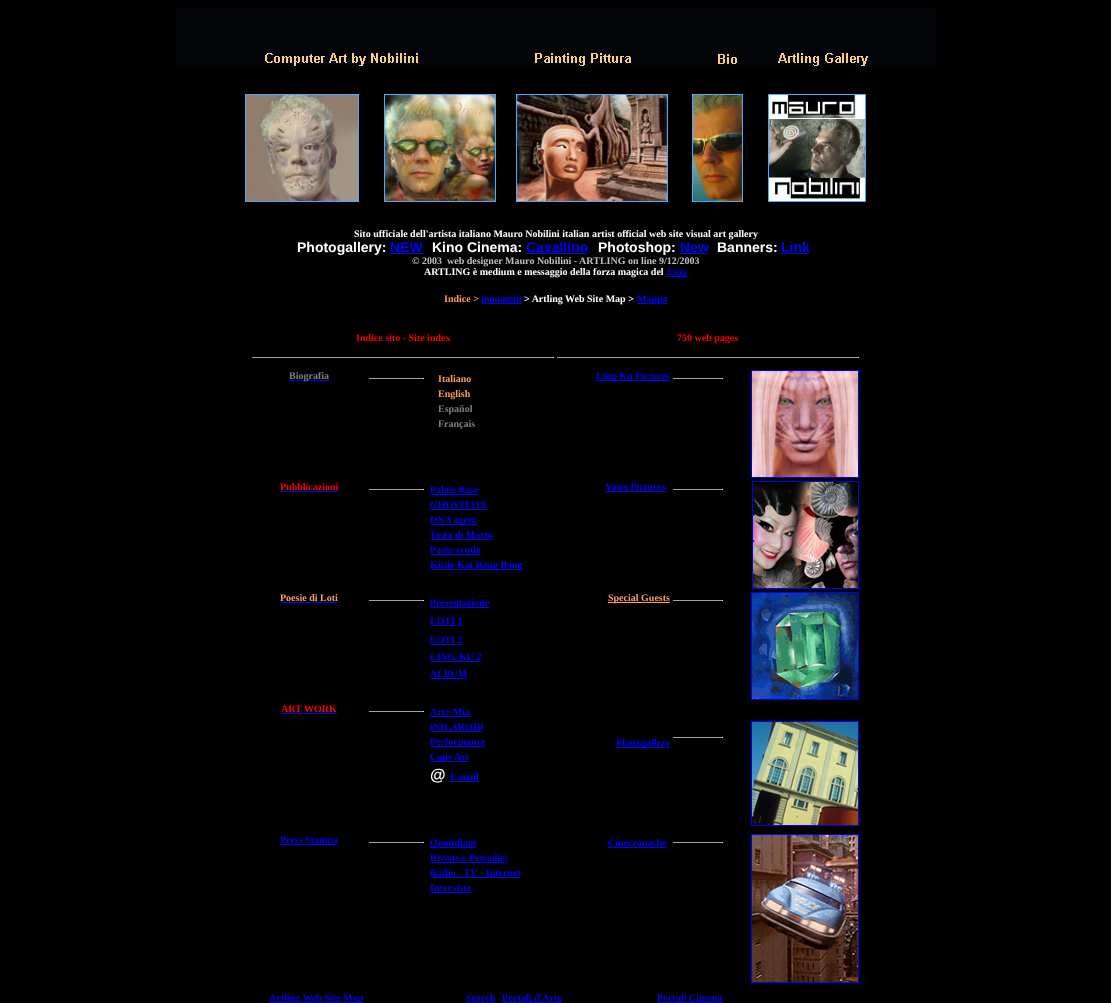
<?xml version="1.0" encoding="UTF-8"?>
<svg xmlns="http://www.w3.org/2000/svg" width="1111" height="1003">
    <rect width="100%" height="100%" fill="#000000"/>
    <image x="176" y="8" width="760" height="60" href="img_01.png"/>
    <rect x="245.5" y="94.5" width="113" height="107" fill="none" stroke="#51A8FF"/>
    <rect x="384.5" y="94.5" width="111" height="107" fill="none" stroke="#51A8FF"/>
    <rect x="516.5" y="94.5" width="151" height="107" fill="none" stroke="#51A8FF"/>
    <rect x="692.5" y="94.5" width="50" height="107" fill="none" stroke="#51A8FF"/>
    <rect x="768.5" y="94.5" width="97" height="107" fill="none" stroke="#51A8FF"/>
    <image x="246" y="95" width="112" height="106" href="img_02.png"/>
    <image x="385" y="95" width="110" height="106" href="img_03.png"/>
    <image x="517" y="95" width="150" height="106" href="img_04.png"/>
    <image x="693" y="95" width="49" height="106" href="img_05.png"/>
    <image x="769" y="95" width="96" height="106" href="img_06.png"/>
    <text x="354" y="237" font-family="Liberation Serif" font-size="10" font-weight="700" fill="#FFFFFF">Sito ufficiale dell'artista italiano Mauro Nobilini italian artist official web site visual art gallery</text>
    <text x="297" y="252" font-family="Liberation Sans" font-size="14" font-weight="700" fill="#FFFFFF">Photogallery:</text>
    <text x="390" y="252" font-family="Liberation Sans" font-size="14" font-weight="700" fill="#0000FF">NEW</text>
    <rect x="390" y="253" width="33" height="1" fill="#0000FF"/>
    <text x="432" y="252" font-family="Liberation Sans" font-size="14" font-weight="700" fill="#FFFFFF">Kino Cinema:</text>
    <text x="526" y="252" font-family="Liberation Sans" font-size="14" font-weight="700" fill="#0000FF">Cavallino</text>
    <rect x="526" y="253" width="62" height="1" fill="#0000FF"/>
    <text x="598" y="252" font-family="Liberation Sans" font-size="14" font-weight="700" fill="#FFFFFF">Photoshop:</text>
    <text x="680" y="252" font-family="Liberation Sans" font-size="14" font-weight="700" fill="#0000FF">New</text>
    <rect x="680" y="253" width="28" height="1" fill="#0000FF"/>
    <text x="717" y="252" font-family="Liberation Sans" font-size="14" font-weight="700" fill="#FFFFFF">Banners:</text>
    <text x="781" y="252" font-family="Liberation Sans" font-size="14" font-weight="700" fill="#0000FF">Link</text>
    <rect x="781" y="253" width="29" height="1" fill="#0000FF"/>
    <text x="412" y="264" font-family="Liberation Serif" font-size="10" font-weight="700" fill="#C0C0C0" xml:space="preserve">© 2003  web designer Mauro Nobilini - ARTLING on line 9/12/2003</text>
    <text x="424" y="275" font-family="Liberation Serif" font-size="10" font-weight="700" fill="#FFFFFF">ARTLING è medium e messaggio della forza magica del</text>
    <rect x="667" y="276" width="20" height="1" fill="#0000FF"/>
    <text x="667" y="275" font-family="Liberation Serif" font-size="10" font-weight="700" fill="#0000FF">Ling</text>
    <text x="444" y="302" font-family="Liberation Serif" font-size="10" font-weight="700" fill="#FF9966">Indice &gt;</text>
    <rect x="481" y="303" width="41" height="1" fill="#0000FF"/>
    <text x="481" y="302" font-family="Liberation Serif" font-size="10" font-weight="700" fill="#0000FF">immagini</text>
    <text x="524" y="302" font-family="Liberation Serif" font-size="10" font-weight="700" fill="#FFFFFF">&gt; Artling Web Site Map &gt;</text>
    <rect x="637" y="303" width="30" height="1" fill="#0000FF"/>
    <text x="637" y="302" font-family="Liberation Serif" font-size="10" font-weight="700" fill="#0000FF">Mappa</text>
    <text x="356" y="341" font-family="Liberation Serif" font-size="10" font-weight="700" fill="#FF0000">Indice sito - Site index</text>
    <text x="677" y="341" font-family="Liberation Serif" font-size="10" font-weight="700" fill="#FF0000">750 web pages</text>
    <rect x="252" y="357" width="302" height="1" fill="#9F9F9F"/>
    <rect x="553" y="357" width="1" height="1" fill="#EEEEEE"/>
    <rect x="557" y="357" width="302" height="1" fill="#9F9F9F"/>
    <rect x="858" y="357" width="1" height="1" fill="#EEEEEE"/>
    <rect x="289" y="380" width="40" height="1" fill="#0000FF"/>
    <text x="289" y="379" font-family="Liberation Serif" font-size="10" font-weight="700" fill="#808080">Biografia</text>
    <rect x="369" y="378" width="55" height="1" fill="#9F9F9F"/>
    <rect x="423" y="378" width="1" height="1" fill="#EEEEEE"/>
    <text font-family="Liberation Serif" font-size="10" font-weight="700" fill="#FF9966">
        <tspan x="438" y="382">Italiano</tspan>
        <tspan x="438" y="397">English</tspan>
    </text>
    <text font-family="Liberation Serif" font-size="10" font-weight="700" fill="#808080">
        <tspan x="438" y="412">Español</tspan>
        <tspan x="438" y="427">Français</tspan>
    </text>
    <rect x="596" y="380" width="74" height="1" fill="#0000FF"/>
    <text x="596" y="379" font-family="Liberation Serif" font-size="10" font-weight="700" fill="#0000FF">Ling-Ku Pictures</text>
    <rect x="673" y="378" width="50" height="1" fill="#9F9F9F"/>
    <rect x="722" y="378" width="1" height="1" fill="#EEEEEE"/>
    <rect x="751.5" y="370.5" width="107" height="107" fill="none" stroke="#0000FF"/>
    <image x="752" y="371" width="106" height="106" href="img_07.png"/>
    <text x="280" y="490" font-family="Liberation Serif" font-size="10" font-weight="700" fill="#FF0000">Pubblicazioni</text>
    <rect x="280" y="491" width="58" height="1" fill="#0000FF"/>
    <rect x="369" y="489" width="55" height="1" fill="#9F9F9F"/>
    <rect x="423" y="489" width="1" height="1" fill="#EEEEEE"/>
    <text x="430" y="493" font-family="Liberation Serif" font-size="10" font-weight="700" fill="#0000FF">Palais Rose</text>
    <rect x="430" y="494" width="48" height="1" fill="#0000FF"/>
    <text x="430" y="508" font-family="Liberation Serif" font-size="10" font-weight="700" fill="#0000FF">GHOSTFOX</text>
    <rect x="430" y="509" width="56" height="1" fill="#0000FF"/>
    <rect x="430" y="524" width="47" height="1" fill="#0000FF"/>
    <text font-family="Liberation Serif" font-size="10" font-weight="700" fill="#0000FF">
        <tspan x="430" y="523">DNA agent</tspan>
        <tspan x="430" y="538">Testa di Morto</tspan>
    </text>
    <rect x="430" y="539" width="63" height="1" fill="#0000FF"/>
    <text x="430" y="553" font-family="Liberation Serif" font-size="10" font-weight="700" fill="#0000FF">Pasto crudo</text>
    <rect x="430" y="554" width="50" height="1" fill="#0000FF"/>
    <rect x="430" y="569" width="92" height="1" fill="#0000FF"/>
    <text x="430" y="568" font-family="Liberation Serif" font-size="10" font-weight="700" fill="#0000FF">Kittie Kat Bang Bang</text>
    <text x="605" y="490" font-family="Liberation Serif" font-size="10" font-weight="700" fill="#0000FF">Yunn Pictures</text>
    <rect x="605" y="491" width="61" height="1" fill="#0000FF"/>
    <rect x="673" y="489" width="50" height="1" fill="#9F9F9F"/>
    <rect x="722" y="489" width="1" height="1" fill="#EEEEEE"/>
    <rect x="752.5" y="481.5" width="106" height="107" fill="none" stroke="#0000FF"/>
    <image x="753" y="482" width="105" height="106" href="img_08.png"/>
    <text x="280" y="601" font-family="Liberation Serif" font-size="10" font-weight="700" fill="#FF9966">Poesie di Loti</text>
    <rect x="280" y="602" width="58" height="1" fill="#0000FF"/>
    <rect x="369" y="600" width="55" height="1" fill="#9F9F9F"/>
    <rect x="423" y="600" width="1" height="1" fill="#EEEEEE"/>
    <text x="430" y="606" font-family="Liberation Serif" font-size="10" font-weight="700" fill="#0000FF">Presentazione</text>
    <rect x="430" y="607" width="59" height="1" fill="#0000FF"/>
    <text x="430" y="624" font-family="Liberation Serif" font-size="10" font-weight="700" fill="#0000FF">LOTI 1</text>
    <rect x="430" y="625" width="32" height="1" fill="#0000FF"/>
    <text x="430" y="643" font-family="Liberation Serif" font-size="10" font-weight="700" fill="#0000FF">LOTI 2</text>
    <rect x="430" y="644" width="32" height="1" fill="#0000FF"/>
    <text x="430" y="660" font-family="Liberation Serif" font-size="10" font-weight="700" fill="#0000FF">LING-KU 2</text>
    <rect x="430" y="661" width="51" height="1" fill="#0000FF"/>
    <text x="430" y="677" font-family="Liberation Serif" font-size="10" font-weight="700" fill="#0000FF">ALBUM</text>
    <rect x="430" y="678" width="37" height="1" fill="#0000FF"/>
    <rect x="608" y="602" width="62" height="1" fill="#FF9966"/>
    <text x="608" y="601" font-family="Liberation Serif" font-size="10" font-weight="700" fill="#FF9966">Special Guests</text>
    <rect x="673" y="600" width="50" height="1" fill="#9F9F9F"/>
    <rect x="722" y="600" width="1" height="1" fill="#EEEEEE"/>
    <rect x="751.5" y="592.5" width="107" height="107" fill="none" stroke="#0000FF"/>
    <image x="752" y="593" width="106" height="106" href="img_09.png"/>
    <text x="281" y="712" font-family="Liberation Serif" font-size="10" font-weight="700" fill="#FF0000">ART WORK</text>
    <rect x="281" y="713" width="56" height="1" fill="#0000FF"/>
    <rect x="369" y="711" width="55" height="1" fill="#9F9F9F"/>
    <rect x="423" y="711" width="1" height="1" fill="#EEEEEE"/>
    <text x="430" y="715" font-family="Liberation Serif" font-size="10" font-weight="700" fill="#0000FF">Arte-Mia</text>
    <rect x="430" y="716" width="40" height="1" fill="#0000FF"/>
    <text x="430" y="730" font-family="Liberation Serif" font-size="10" font-weight="700" fill="#0000FF">POLAROID</text>
    <rect x="430" y="731" width="53" height="1" fill="#0000FF"/>
    <text x="430" y="745" font-family="Liberation Serif" font-size="10" font-weight="700" fill="#0000FF">Performance</text>
    <rect x="430" y="746" width="55" height="1" fill="#0000FF"/>
    <rect x="430" y="761" width="39" height="1" fill="#0000FF"/>
    <text x="430" y="760" font-family="Liberation Serif" font-size="10" font-weight="700" fill="#0000FF">Copy</text>
    <text x="454" y="760" font-family="Liberation Serif" font-size="10" font-weight="700" fill="#0000FF">Art</text>
    <text x="430" y="780" font-family="Liberation Sans" font-size="16" font-weight="700" fill="#FFFFFF">@</text>
    <text x="450" y="780" font-family="Liberation Serif" font-size="10" font-weight="700" fill="#0000FF">E-mail</text>
    <rect x="450" y="781" width="29" height="1" fill="#0000FF"/>
    <rect x="673" y="737" width="50" height="1" fill="#9F9F9F"/>
    <rect x="722" y="737" width="1" height="1" fill="#EEEEEE"/>
    <rect x="751.5" y="721.5" width="107" height="104" fill="none" stroke="#0000FF"/>
    <image x="752" y="722" width="106" height="103" href="img_10.png"/>
    <rect x="616" y="747" width="54" height="1" fill="#0000FF"/>
    <text x="616" y="746" font-family="Liberation Serif" font-size="10" font-weight="700" fill="#0000FF">Photogallery</text>
    <rect x="280" y="844" width="58" height="1" fill="#0000FF"/>
    <text x="280" y="843" font-family="Liberation Serif" font-size="10" font-weight="700" fill="#0000FF">Press Stampa</text>
    <rect x="369" y="842" width="55" height="1" fill="#9F9F9F"/>
    <rect x="423" y="842" width="1" height="1" fill="#EEEEEE"/>
    <rect x="430" y="847" width="46" height="1" fill="#0000FF"/>
    <text font-family="Liberation Serif" font-size="10" font-weight="700" fill="#0000FF">
        <tspan x="430" y="846">Quotidiani</tspan>
        <tspan x="430" y="861">Riviste e Periodici</tspan>
    </text>
    <rect x="430" y="862" width="77" height="1" fill="#0000FF"/>
    <text x="430" y="876" font-family="Liberation Serif" font-size="10" font-weight="700" fill="#0000FF">Radio - TV - Internet</text>
    <rect x="430" y="877" width="90" height="1" fill="#0000FF"/>
    <text x="430" y="891" font-family="Liberation Serif" font-size="10" font-weight="700" fill="#0000FF">Interviste</text>
    <rect x="430" y="892" width="41" height="1" fill="#0000FF"/>
    <text x="608" y="846" font-family="Liberation Serif" font-size="10" font-weight="700" fill="#0000FF">Cinecronache</text>
    <rect x="608" y="847" width="59" height="1" fill="#0000FF"/>
    <rect x="673" y="842" width="50" height="1" fill="#9F9F9F"/>
    <rect x="722" y="842" width="1" height="1" fill="#EEEEEE"/>
    <rect x="751.5" y="834.5" width="107" height="148" fill="none" stroke="#0000FF"/>
    <image x="752" y="835" width="106" height="147" href="img_11.png"/>
    <rect x="269" y="1002" width="94" height="1" fill="#0000FF"/>
    <text x="269" y="1001" font-family="Liberation Serif" font-size="10" font-weight="700" fill="#0000FF">Artling Web Site Map</text>
    <text x="466" y="1001" font-family="Liberation Serif" font-size="10" font-weight="700" fill="#0000FF">Search</text>
    <rect x="466" y="1002" width="29" height="1" fill="#0000FF"/>
    <text x="502" y="1001" font-family="Liberation Serif" font-size="10" font-weight="700" fill="#0000FF">Portali d'Arte</text>
    <rect x="502" y="1002" width="60" height="1" fill="#0000FF"/>
    <text x="657" y="1001" font-family="Liberation Serif" font-size="10" font-weight="700" fill="#0000FF">Portali Cinema</text>
    <rect x="657" y="1002" width="66" height="1" fill="#0000FF"/>
</svg>
